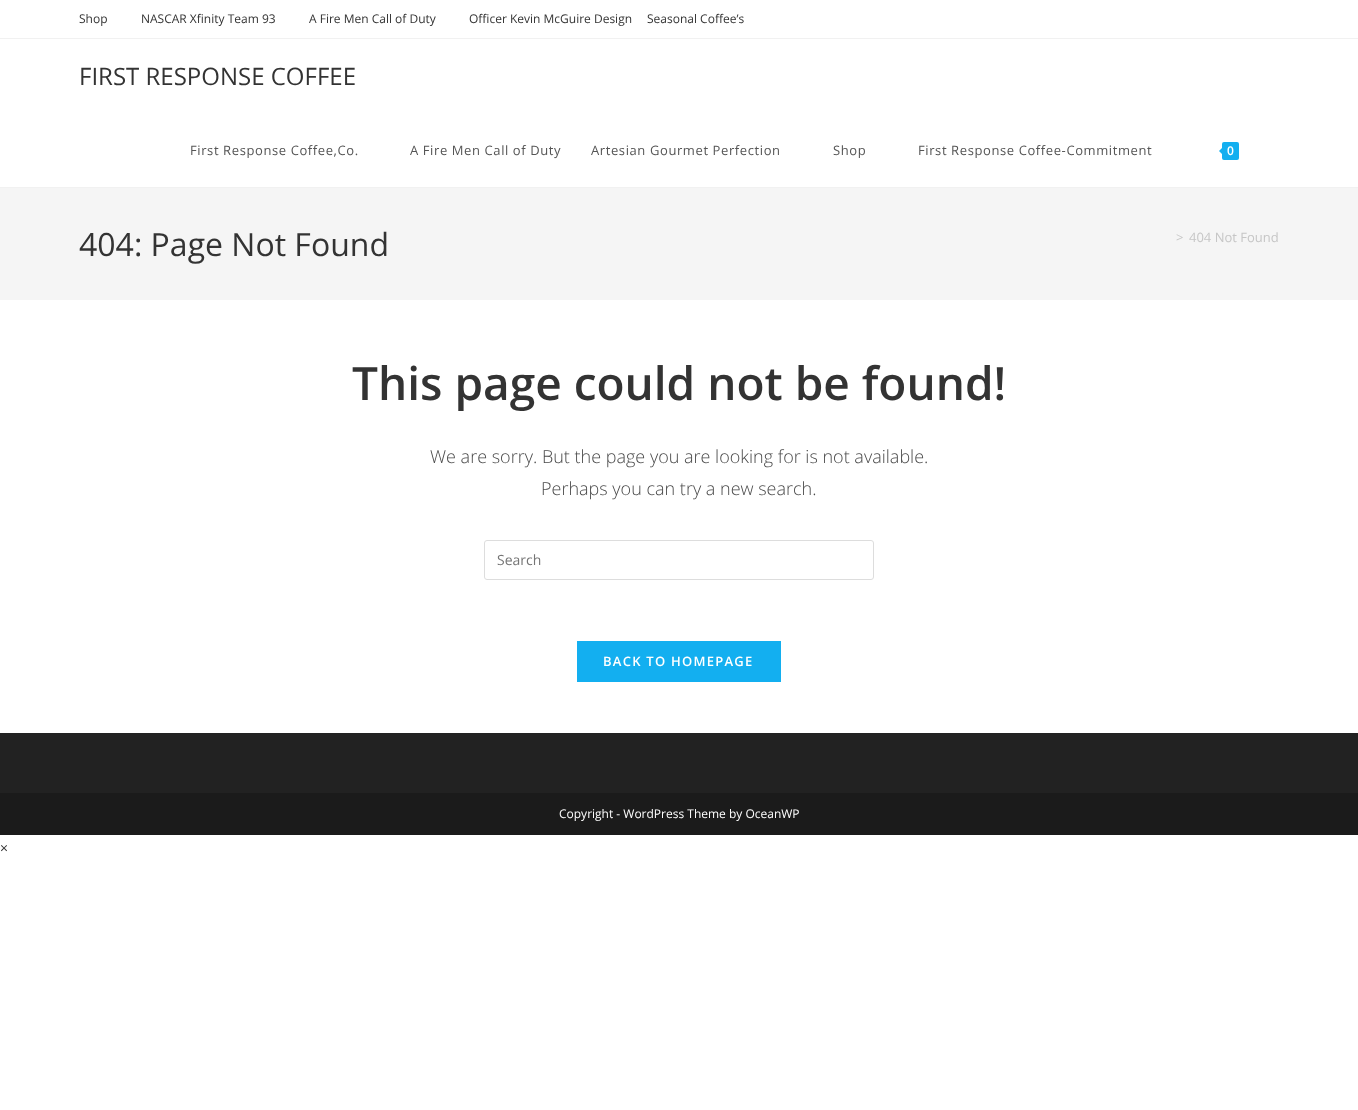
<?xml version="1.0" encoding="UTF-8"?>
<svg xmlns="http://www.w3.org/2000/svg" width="1358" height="1110">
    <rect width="100%" height="100%" fill="#FFFFFF"/>
    <rect x="0" y="38" width="1358" height="1" fill="#F1F1F1"/>
    <text x="79" y="23" font-family="Open Sans" font-size="12" fill="#333333">Shop</text>
    <text x="141" y="23" font-family="Open Sans" font-size="12" fill="#333333">NASCAR Xfinity Team 93</text>
    <text x="309" y="23" font-family="Open Sans" font-size="12" fill="#333333">A Fire Men Call of Duty</text>
    <text x="469" y="23" font-family="Open Sans" font-size="12" fill="#333333">Officer Kevin McGuire Design</text>
    <text x="647" y="23" font-family="Open Sans" font-size="12" fill="#333333">Seasonal Coffee’s</text>
    <rect x="0" y="187" width="1358" height="1" fill="#F1F1F1"/>
    <text x="79" y="85" font-family="Open Sans" font-size="24" fill="#333333">FIRST RESPONSE COFFEE</text>
    <text x="190" y="155" font-family="Open Sans" font-size="13" letter-spacing="0.6" fill="#555555">First Response Coffee,Co.</text>
    <text x="410" y="155" font-family="Open Sans" font-size="13" letter-spacing="0.6" fill="#555555">A Fire Men Call of Duty</text>
    <text x="591" y="155" font-family="Open Sans" font-size="13" letter-spacing="0.6" fill="#555555">Artesian Gourmet Perfection</text>
    <text x="833" y="155" font-family="Open Sans" font-size="13" letter-spacing="0.6" fill="#555555">Shop</text>
    <text x="918" y="155" font-family="Open Sans" font-size="13" letter-spacing="0.6" fill="#555555">First Response Coffee-Commitment</text>
    <rect x="1222" y="142" width="17" height="18" rx="2" fill="#13AFF0"/>
    <path d="M 1224 146 V 156 L 1219 151 Z" fill="#13AFF0"/>
    <text x="1227" y="155" font-family="Open Sans" font-size="12" font-weight="600" fill="#FFFFFF">0</text>
    <rect x="0" y="188" width="1358" height="112" fill="#F5F5F5"/>
    <text x="79" y="256" font-family="Open Sans" font-size="32" fill="#333333">404: Page Not Found</text>
    <text x="1176" y="242" font-family="Open Sans" font-size="13" fill="#C6C6C6">&gt;</text>
    <text x="1189" y="242" font-family="Open Sans" font-size="13" fill="#C6C6C6">404 Not Found</text>
    <text x="352" y="400" font-family="Open Sans" font-size="46" font-weight="600" fill="#333333">This page could not be found!</text>
    <text x="430" y="463" font-family="Open Sans" font-size="18" font-weight="300" fill="#4A4A4A">We are sorry. But the page you are looking for is not available.</text>
    <text x="541" y="495" font-family="Open Sans" font-size="18" font-weight="300" fill="#4A4A4A">Perhaps you can try a new search.</text>
    <rect x="484.5" y="540.5" width="389" height="39" rx="2.5" fill="none" stroke="#DDDDDD"/>
    <text x="497" y="565" font-family="Open Sans" font-size="14" fill="#757575">Search</text>
    <rect x="577" y="641" width="204" height="41" fill="#13AFF0"/>
    <text x="603" y="666" font-family="Open Sans" font-size="13" font-weight="600" letter-spacing="1.25" fill="#FFFFFF">BACK TO HOMEPAGE</text>
    <rect x="0" y="733" width="1358" height="60" fill="#222222"/>
    <rect x="0" y="793" width="1358" height="42" fill="#1B1B1B"/>
    <text x="559" y="818" font-family="Open Sans" font-size="12" fill="#FFFFFF">Copyright - WordPress Theme by OceanWP</text>
    <text x="0" y="853" font-family="Open Sans" font-size="14" fill="#333333">×</text>
</svg>
